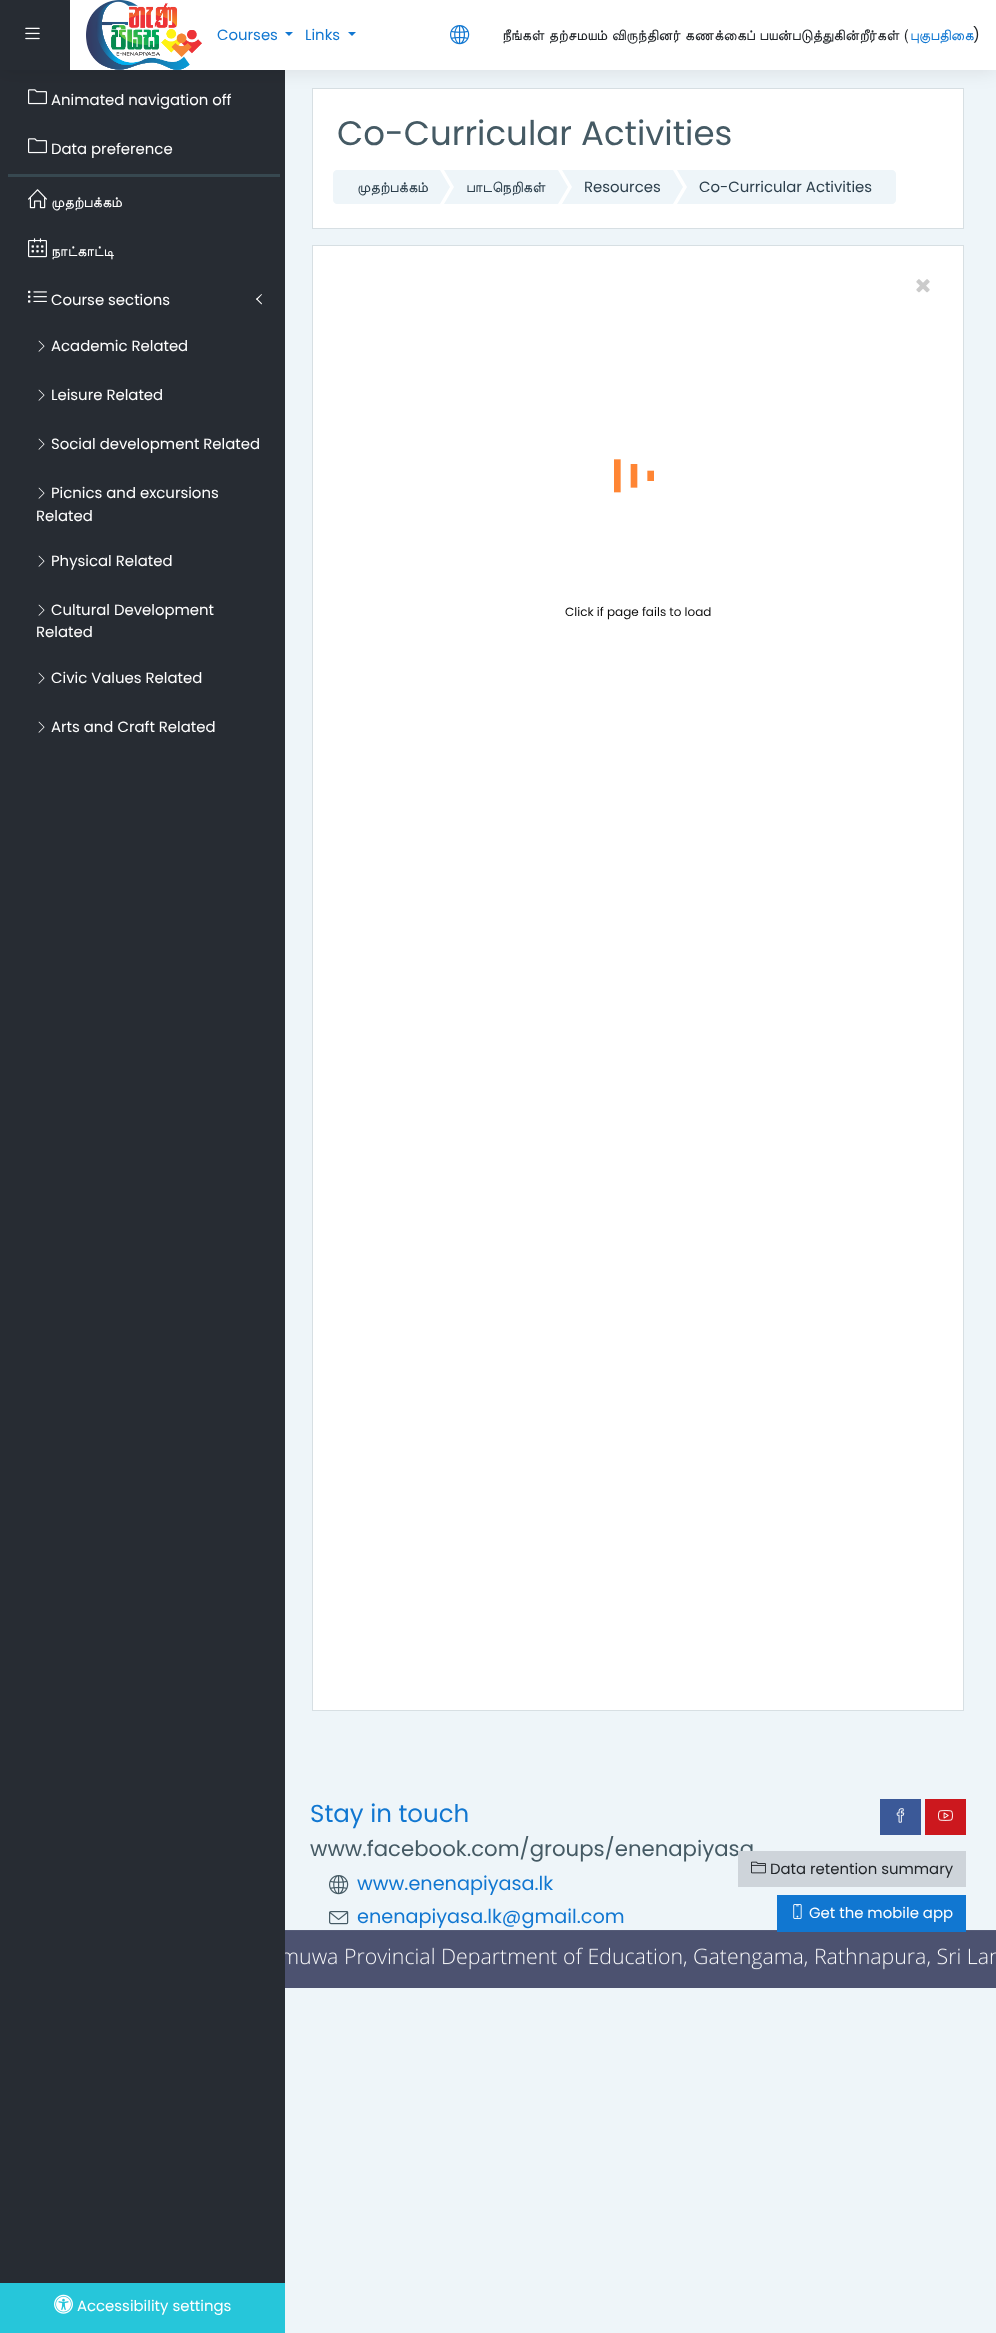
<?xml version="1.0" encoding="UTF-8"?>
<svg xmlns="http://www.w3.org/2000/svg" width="996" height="2333">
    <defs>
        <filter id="blur1" x="-50%" y="-200%" width="200%" height="500%"><feGaussianBlur stdDeviation="10"/></filter>
    </defs>
    <rect width="100%" height="100%" fill="#EEF5F9"/>
    <rect x="0" y="70" width="285" height="2213" fill="#272C33"/>
    <image x="28" y="89" width="19" height="16" href="img_04.png"/>
    <rect x="312.5" y="88.5" width="651" height="140" fill="#FFFFFF" stroke="#D7DFE3"/>
    <rect x="0" y="0" width="996" height="70" fill="#000000" fill-opacity="0.1" filter="url(#blur1)"/>
    <rect x="70" y="0" width="926" height="70" fill="#FFFFFF"/>
    <rect x="0" y="0" width="70" height="70" fill="#272C33"/>
    <image x="25" y="27" width="15" height="13" href="img_01.png"/>
    <image x="86" y="0" width="116" height="70" href="img_02.png"/>
    <text x="217" y="40" font-family="Poppins" font-size="14.9" fill="#1177D1">Courses</text>
    <path d="M 285 32 H 293 L 289 36 Z" fill="#1177D1"/>
    <text x="305" y="40" font-family="Poppins" font-size="14.9" fill="#1177D1">Links</text>
    <path d="M 348 32 H 356 L 352 36 Z" fill="#1177D1"/>
    <image x="450" y="25" width="20" height="20" href="img_03.png"/>
    <text x="502" y="40" word-spacing="0.5" font-family="FreeSans" font-size="14.9" fill="#212529">நீங்கள் தற்சமயம் விருந்தினர் கணக்கைப் பயன்படுத்துகின்றீர்கள் (</text>
    <text x="910" y="40" font-family="FreeSans" font-size="14.9" fill="#1177D1">புகுபதிகை</text>
    <text x="973" y="40" font-family="Poppins" font-size="14.9" fill="#212529">)</text>
    <text x="51" y="105" font-family="Poppins" font-size="14.9" fill="#FFFFFF">Animated navigation off</text>
    <image x="28" y="138" width="19" height="16" href="img_04.png"/>
    <text x="51" y="154" font-family="Poppins" font-size="14.9" fill="#FFFFFF">Data preference</text>
    <rect x="8" y="174" width="272" height="3" fill="#374850"/>
    <image x="28" y="189" width="19" height="20" href="img_05.png"/>
    <text x="51" y="207" font-family="FreeSans" font-size="14.9" fill="#FFFFFF">முதற்பக்கம்</text>
    <image x="28" y="238" width="19" height="20" href="img_06.png"/>
    <text x="51" y="256" font-family="FreeSans" font-size="14.9" fill="#FFFFFF">நாட்காட்டி</text>
    <image x="28" y="290" width="19" height="13" href="img_07.png"/>
    <text x="51" y="305" font-family="Poppins" font-size="14.9" fill="#FFFFFF">Course sections</text>
    <path d="M 256 299 L 261.5 294 L 262 294.5 L 257 300 Z" fill="#FFFFFF"/>
    <path d="M 256 299 L 257 298.5 L 262 303.5 L 261.5 304.5 Z" fill="#FFFFFF"/>
    <image x="38" y="340" width="7" height="12" href="img_08.png"/>
    <text x="51" y="351" font-family="Poppins" font-size="14.9" fill="#FFFFFF">Academic Related</text>
    <image x="38" y="389" width="7" height="12" href="img_08.png"/>
    <text x="51" y="400" font-family="Poppins" font-size="14.9" fill="#FFFFFF">Leisure Related</text>
    <image x="38" y="438" width="7" height="12" href="img_08.png"/>
    <text x="51" y="449" font-family="Poppins" font-size="14.9" fill="#FFFFFF">Social development Related</text>
    <image x="38" y="487" width="7" height="12" href="img_08.png"/>
    <text x="51" y="498" font-family="Poppins" font-size="14.9" fill="#FFFFFF">Picnics and excursions</text>
    <text x="36" y="521" font-family="Poppins" font-size="14.9" fill="#FFFFFF">Related</text>
    <image x="38" y="555" width="7" height="12" href="img_08.png"/>
    <text x="51" y="566" font-family="Poppins" font-size="14.9" fill="#FFFFFF">Physical Related</text>
    <image x="38" y="604" width="7" height="12" href="img_08.png"/>
    <text x="51" y="615" font-family="Poppins" font-size="14.9" fill="#FFFFFF">Cultural Development</text>
    <text x="36" y="637" font-family="Poppins" font-size="14.9" fill="#FFFFFF">Related</text>
    <image x="38" y="672" width="7" height="12" href="img_08.png"/>
    <text x="51" y="683" font-family="Poppins" font-size="14.9" fill="#FFFFFF">Civic Values Related</text>
    <image x="38" y="721" width="7" height="12" href="img_08.png"/>
    <text x="51" y="732" font-family="Poppins" font-size="14.9" fill="#FFFFFF">Arts and Craft Related</text>
    <text x="337" y="145" font-family="Poppins" font-size="34" fill="#455A64">Co-Curricular Activities</text>
    <path d="M 337 170 H 440 V 204 H 337 C 335 204 333 202 333 200 V 174 C 333 172 335 170 337 170 Z" fill="#EEF5F9"/>
    <text x="357" y="192" font-family="FreeSans" font-size="14.9" fill="#2C3F4C">முதற்பக்கம்</text>
    <rect x="444" y="170" width="114" height="34" fill="#EEF5F9"/>
    <path d="M 444 204 V 170 L 454 187 Z" fill="#FFFFFF"/>
    <path d="M 440 204 V 170 L 450 187 Z" fill="#EEF5F9"/>
    <text x="466" y="192" font-family="FreeSans" font-size="14.9" fill="#2C3F4C">பாடநெறிகள்</text>
    <rect x="562" y="170" width="111" height="34" fill="#EEF5F9"/>
    <path d="M 562 204 V 170 L 572 187 Z" fill="#FFFFFF"/>
    <path d="M 558 204 V 170 L 568 187 Z" fill="#EEF5F9"/>
    <text x="584" y="192" font-family="Poppins" font-size="14.9" fill="#2C3F4C">Resources</text>
    <path d="M 677 170 H 892 C 894 170 896 172 896 174 V 200 C 896 202 894 204 892 204 H 677 Z" fill="#EEF5F9"/>
    <path d="M 677 204 V 170 L 687 187 Z" fill="#FFFFFF"/>
    <path d="M 673 204 V 170 L 683 187 Z" fill="#EEF5F9"/>
    <text x="699" y="192" font-family="Poppins" font-size="14.9" fill="#2C3F4C">Co-Curricular Activities</text>
    <rect x="312.5" y="245.5" width="651" height="1465" fill="#FFFFFF" stroke="#D7DFE3"/>
    <image x="916" y="279" width="14" height="14" href="img_09.png"/>
    <image x="614" y="459" width="40" height="34" href="img_10.png"/>
    <text x="565" y="616" font-family="Poppins" font-size="12" fill="#0C0C0C">Click if page fails to load</text>
    <rect x="0" y="2283" width="285" height="50" fill="#26C6DA"/>
    <image x="54" y="2294" width="19" height="20" href="img_11.png"/>
    <text x="77" y="2311" font-family="Poppins" font-size="14.9" fill="#FFFFFF">Accessibility settings</text>
    <image x="285" y="1930" width="711" height="58" href="img_12.png"/>
    <text x="310" y="1822" font-family="Poppins" font-size="24.5" fill="#1177D1">Stay in touch</text>
    <text x="310" y="1856" font-family="Poppins" font-size="21.25" fill="#455A64">www.facebook.com/groups/enenapiyasa</text>
    <image x="329" y="1875" width="20" height="20" href="img_13.png"/>
    <text x="357" y="1890" font-family="Poppins" font-size="19.25" fill="#1177D1">www.enenapiyasa.lk</text>
    <image x="329" y="1911" width="20" height="14" href="img_14.png"/>
    <text x="357" y="1923" font-family="Poppins" font-size="19.25" fill="#1177D1">enenapiyasa.lk@gmail.com</text>
    <rect x="880" y="1799" width="41" height="36" fill="#3B5998"/>
    <image x="896" y="1808" width="9" height="15" href="img_15.png"/>
    <rect x="925" y="1799" width="41" height="36" fill="#CC181E"/>
    <image x="938" y="1810" width="15" height="11" href="img_16.png"/>
    <rect x="738" y="1851" width="228" height="36" fill="#CED4DA"/>
    <image x="751" y="1861" width="15" height="13" href="img_17.png"/>
    <text x="770" y="1874" font-family="Poppins" font-size="14.9" fill="#212529">Data retention summary</text>
    <rect x="777" y="1895" width="189" height="37" fill="#1177D1"/>
    <image x="793" y="1904" width="9" height="15" href="img_18.png"/>
    <text x="809" y="1918" font-family="Poppins" font-size="14.9" fill="#FFFFFF">Get the mobile app</text>
</svg>
